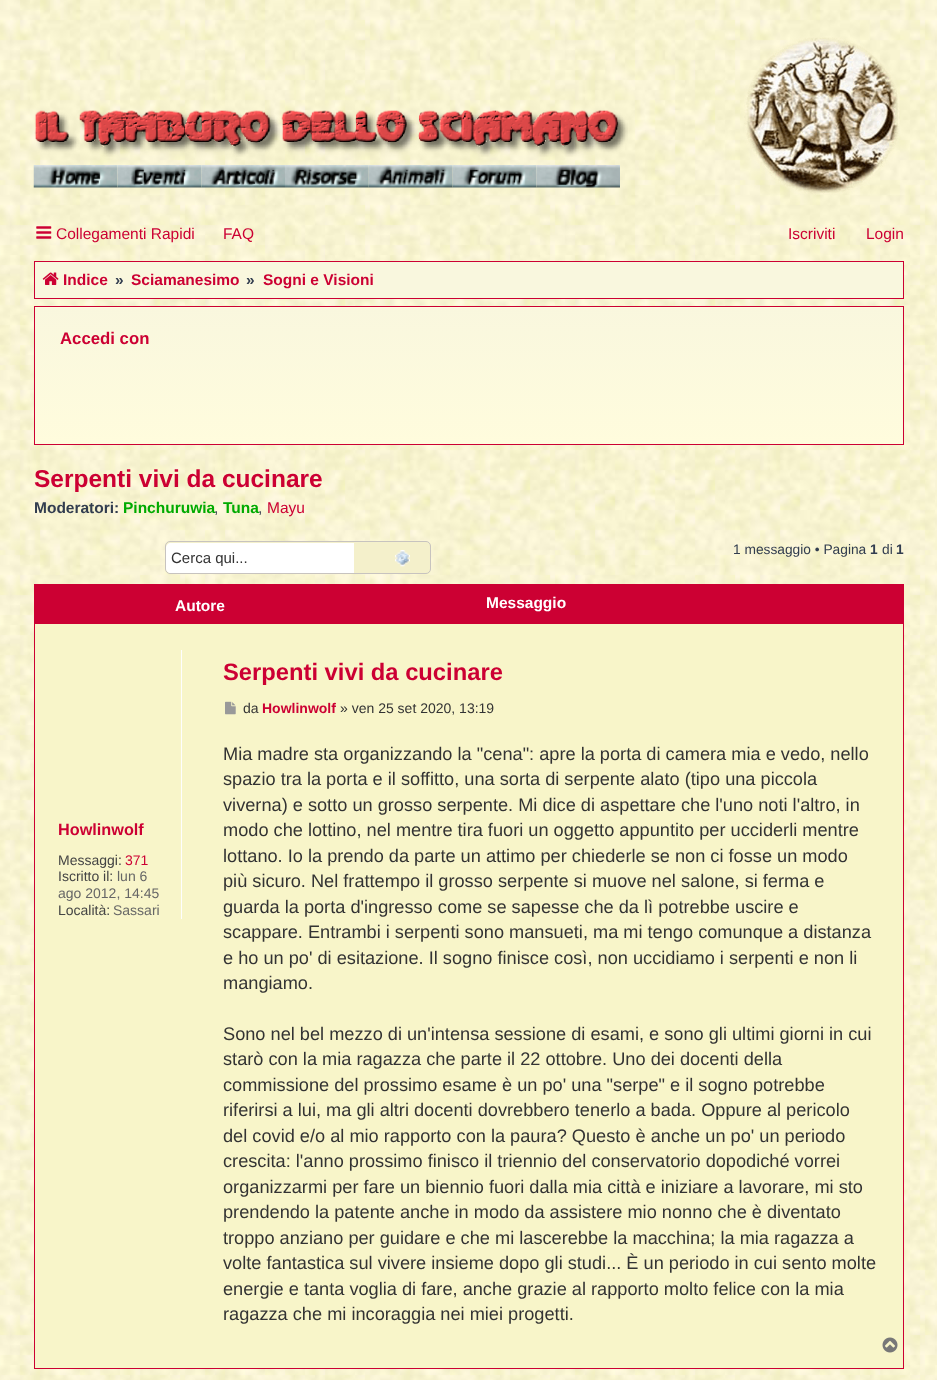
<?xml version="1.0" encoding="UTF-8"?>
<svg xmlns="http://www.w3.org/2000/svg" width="937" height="1380">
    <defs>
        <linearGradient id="g1" gradientUnits="userSpaceOnUse" x1="469" y1="171" x2="469" y2="308"><stop offset="0" stop-color="#F9F7DE"/><stop offset="1" stop-color="#FFFCDD"/></linearGradient>
        <linearGradient id="g2" gradientUnits="userSpaceOnUse" x1="469" y1="307" x2="469" y2="444"><stop offset="0" stop-color="#F9F7DE"/><stop offset="1" stop-color="#FFFCDD"/></linearGradient>
    </defs>
    <rect width="100%" height="100%" fill="#FFFFFF"/>
    <image x="0" y="0" width="937" height="1380" href="img_01.png"/>
    <image x="34" y="110" width="594" height="47" href="img_02.png"/>
    <image x="33" y="165" width="85" height="23" href="img_03.png"/>
    <image x="117" y="165" width="85" height="23" href="img_04.png"/>
    <image x="201" y="165" width="84" height="23" href="img_05.png"/>
    <image x="285" y="165" width="84" height="23" href="img_06.png"/>
    <image x="452" y="165" width="85" height="23" href="img_08.png"/>
    <image x="368" y="165" width="85" height="23" href="img_07.png"/>
    <image x="536" y="165" width="84" height="23" href="img_09.png"/>
    <image x="744" y="37" width="156" height="158" href="img_10.png"/>
    <image x="36" y="226" width="16" height="13" href="img_11.png"/>
    <text x="56" y="239" font-family="Liberation Sans" font-size="15.5" fill="#CC0033">Collegamenti Rapidi</text>
    <text x="223" y="239" font-family="Liberation Sans" font-size="15.5" fill="#CC0033">FAQ</text>
    <text x="788" y="239" font-family="Liberation Sans" font-size="15.5" fill="#CC0033">Iscriviti</text>
    <text x="866" y="239" font-family="Liberation Sans" font-size="15.5" fill="#CC0033">Login</text>
    <rect x="34.5" y="261.5" width="869" height="37" fill="#F9F7DE" stroke="#CC0033"/>
    <image x="42" y="272" width="17" height="13" href="img_12.png"/>
    <text x="63" y="285" font-family="Liberation Sans" font-size="15.5" font-weight="700" fill="#CC0033">Indice</text>
    <text x="115" y="285" font-family="Liberation Sans" font-size="15.5" font-weight="700" fill="#323D4F">»</text>
    <text x="131" y="285" font-family="Liberation Sans" font-size="15.5" font-weight="700" fill="#CC0033">Sciamanesimo</text>
    <text x="246" y="285" font-family="Liberation Sans" font-size="15.5" font-weight="700" fill="#323D4F">»</text>
    <text x="263" y="285" font-family="Liberation Sans" font-size="15.5" font-weight="700" fill="#CC0033">Sogni e Visioni</text>
    <rect x="34" y="307" width="870" height="1" fill="url(#g1)"/>
    <rect x="35" y="308" width="868" height="136" fill="url(#g2)"/>
    <rect x="34.5" y="306.5" width="869" height="138" fill="none" stroke="#CC0033"/>
    <text x="60" y="344" font-family="Liberation Sans" font-size="16.75" font-weight="700" fill="#CC0033">Accedi con</text>
    <text x="34" y="487" font-family="Liberation Sans" font-size="24.5" font-weight="700" fill="#CC0033">Serpenti vivi da cucinare</text>
    <text x="34" y="513" font-family="Liberation Sans" font-size="15.5" font-weight="700" fill="#323D4F">Moderatori:</text>
    <text x="123" y="513" font-family="Liberation Sans" font-size="15.5" font-weight="700" fill="#00AA00">Pinchuruwia</text>
    <text x="214" y="513" font-family="Liberation Sans" font-size="15.5" fill="#323D4F">,</text>
    <text x="223" y="513" font-family="Liberation Sans" font-size="15.5" font-weight="700" fill="#00AA00">Tuna</text>
    <text x="258" y="513" font-family="Liberation Sans" font-size="15.5" fill="#323D4F">,</text>
    <text x="267" y="513" font-family="Liberation Sans" font-size="15.5" fill="#CC0033">Mayu</text>
    <text x="733" y="554" font-family="Liberation Sans" font-size="13.75" fill="#323D4F">1 messaggio • Pagina</text>
    <text x="870" y="554" font-family="Liberation Sans" font-size="13.75" font-weight="700" fill="#323D4F">1</text>
    <text x="882" y="554" font-family="Liberation Sans" font-size="13.75" fill="#323D4F">di</text>
    <text x="896" y="554" font-family="Liberation Sans" font-size="13.75" font-weight="700" fill="#323D4F">1</text>
    <rect x="165.5" y="541.5" width="265" height="32" rx="4.5" fill="#F4F0CB" stroke="#C7C3BF"/>
    <path d="M 171 543 H 354 V 573 H 171 C 168 573 166 571 166 568 V 548 C 166 545 168 543 171 543 Z" fill="#FFFFFF"/>
    <text x="171" y="563" font-family="Liberation Sans" font-size="15" fill="#333333">Cerca qui...</text>
    <image x="395" y="550" width="15" height="17" href="img_13.png"/>
    <rect x="35" y="624" width="868" height="744" fill="#F8F5C9"/>
    <rect x="34.5" y="584.5" width="869" height="784" fill="none" stroke="#CC0033"/>
    <rect x="35" y="585" width="868" height="39" fill="#CC0033"/>
    <text x="175" y="611" font-family="Liberation Sans" font-size="15.5" font-weight="700" fill="#FFFFFF">Autore</text>
    <text x="486" y="608" font-family="Liberation Sans" font-size="15.5" font-weight="700" fill="#FFFFFF">Messaggio</text>
    <rect x="181" y="650" width="1" height="269" fill="#FEFEFE"/>
    <text x="58" y="835" font-family="Liberation Sans" font-size="16.25" font-weight="700" fill="#CC0033">Howlinwolf</text>
    <text x="58" y="865" font-family="Liberation Sans" font-size="14" fill="#444444">Messaggi:</text>
    <text x="125" y="865" font-family="Liberation Sans" font-size="14" fill="#CC0033">371</text>
    <text x="58" y="881" font-family="Liberation Sans" font-size="14" fill="#444444">Iscritto il:</text>
    <text x="117" y="881" font-family="Liberation Sans" font-size="14" fill="#666666">lun 6</text>
    <text x="58" y="898" font-family="Liberation Sans" font-size="14" fill="#666666">ago 2012, 14:45</text>
    <text x="58" y="915" font-family="Liberation Sans" font-size="14" fill="#444444">Località:</text>
    <text x="113" y="915" font-family="Liberation Sans" font-size="14" fill="#666666">Sassari</text>
    <text x="223" y="680" font-family="Liberation Sans" font-size="23.75" font-weight="700" fill="#CC0033">Serpenti vivi da cucinare</text>
    <image x="225" y="701" width="11" height="14" href="img_14.png"/>
    <text x="243" y="713" font-family="Liberation Sans" font-size="14" fill="#333333">da</text>
    <text x="262" y="713" font-family="Liberation Sans" font-size="14" font-weight="700" fill="#CC0033">Howlinwolf</text>
    <text x="340" y="713" font-family="Liberation Sans" font-size="14" fill="#333333">» ven 25 set 2020, 13:19</text>
    <text font-family="Liberation Sans" font-size="18.2" fill="#333333">
        <tspan x="223" y="760">Mia madre sta organizzando la "cena": apre la porta di camera mia e vedo, nello</tspan>
        <tspan x="223" y="785">spazio tra la porta e il soffitto, una sorta di serpente alato (tipo una piccola</tspan>
        <tspan x="223" y="811">viverna) e sotto un grosso serpente. Mi dice di aspettare che l'uno noti l'altro, in</tspan>
        <tspan x="223" y="836">modo che lottino, nel mentre tira fuori un oggetto appuntito per ucciderli mentre</tspan>
        <tspan x="223" y="862">lottano. Io la prendo da parte un attimo per chiederle se non ci fosse un modo</tspan>
        <tspan x="223" y="887">più sicuro. Nel frattempo il grosso serpente si muove nel salone, si ferma e</tspan>
        <tspan x="223" y="913">guarda la porta d'ingresso come se sapesse che da lì potrebbe uscire e</tspan>
        <tspan x="223" y="938">scappare. Entrambi i serpenti sono mansueti, ma mi tengo comunque a distanza</tspan>
        <tspan x="223" y="964">e ho un po' di esitazione. Il sogno finisce così, non uccidiamo i serpenti e non li</tspan>
        <tspan x="223" y="989">mangiamo.</tspan>
    </text>
    <text font-family="Liberation Sans" font-size="18.2" fill="#333333">
        <tspan x="223" y="1040">Sono nel bel mezzo di un'intensa sessione di esami, e sono gli ultimi giorni in cui</tspan>
        <tspan x="223" y="1065">starò con la mia ragazza che parte il 22 ottobre. Uno dei docenti della</tspan>
        <tspan x="223" y="1091">commissione del prossimo esame è un po' una "serpe" e il sogno potrebbe</tspan>
        <tspan x="223" y="1116">riferirsi a lui, ma gli altri docenti dovrebbero tenerlo a bada. Oppure al pericolo</tspan>
        <tspan x="223" y="1142">del covid e/o al mio rapporto con la paura? Questo è anche un po' un periodo</tspan>
        <tspan x="223" y="1167">crescita: l'anno prossimo finisco il triennio del conservatorio dopodiché vorrei</tspan>
        <tspan x="223" y="1193">organizzarmi per fare un biennio fuori dalla mia città e iniziare a lavorare, mi sto</tspan>
        <tspan x="223" y="1218">prendendo la patente anche in modo da assistere mio nonno che è diventato</tspan>
        <tspan x="223" y="1244">troppo anziano per guidare e che mi lascerebbe la macchina; la mia ragazza a</tspan>
        <tspan x="223" y="1269">volte fantastica sul vivere insieme dopo gli studi... È un periodo in cui sento molte</tspan>
        <tspan x="223" y="1295">energie e tanta voglia di fare, anche grazie al rapporto molto felice con la mia</tspan>
        <tspan x="223" y="1320">ragazza che mi incoraggia nei miei progetti.</tspan>
    </text>
    <image x="882" y="1337" width="16" height="16" href="img_15.png"/>
</svg>
